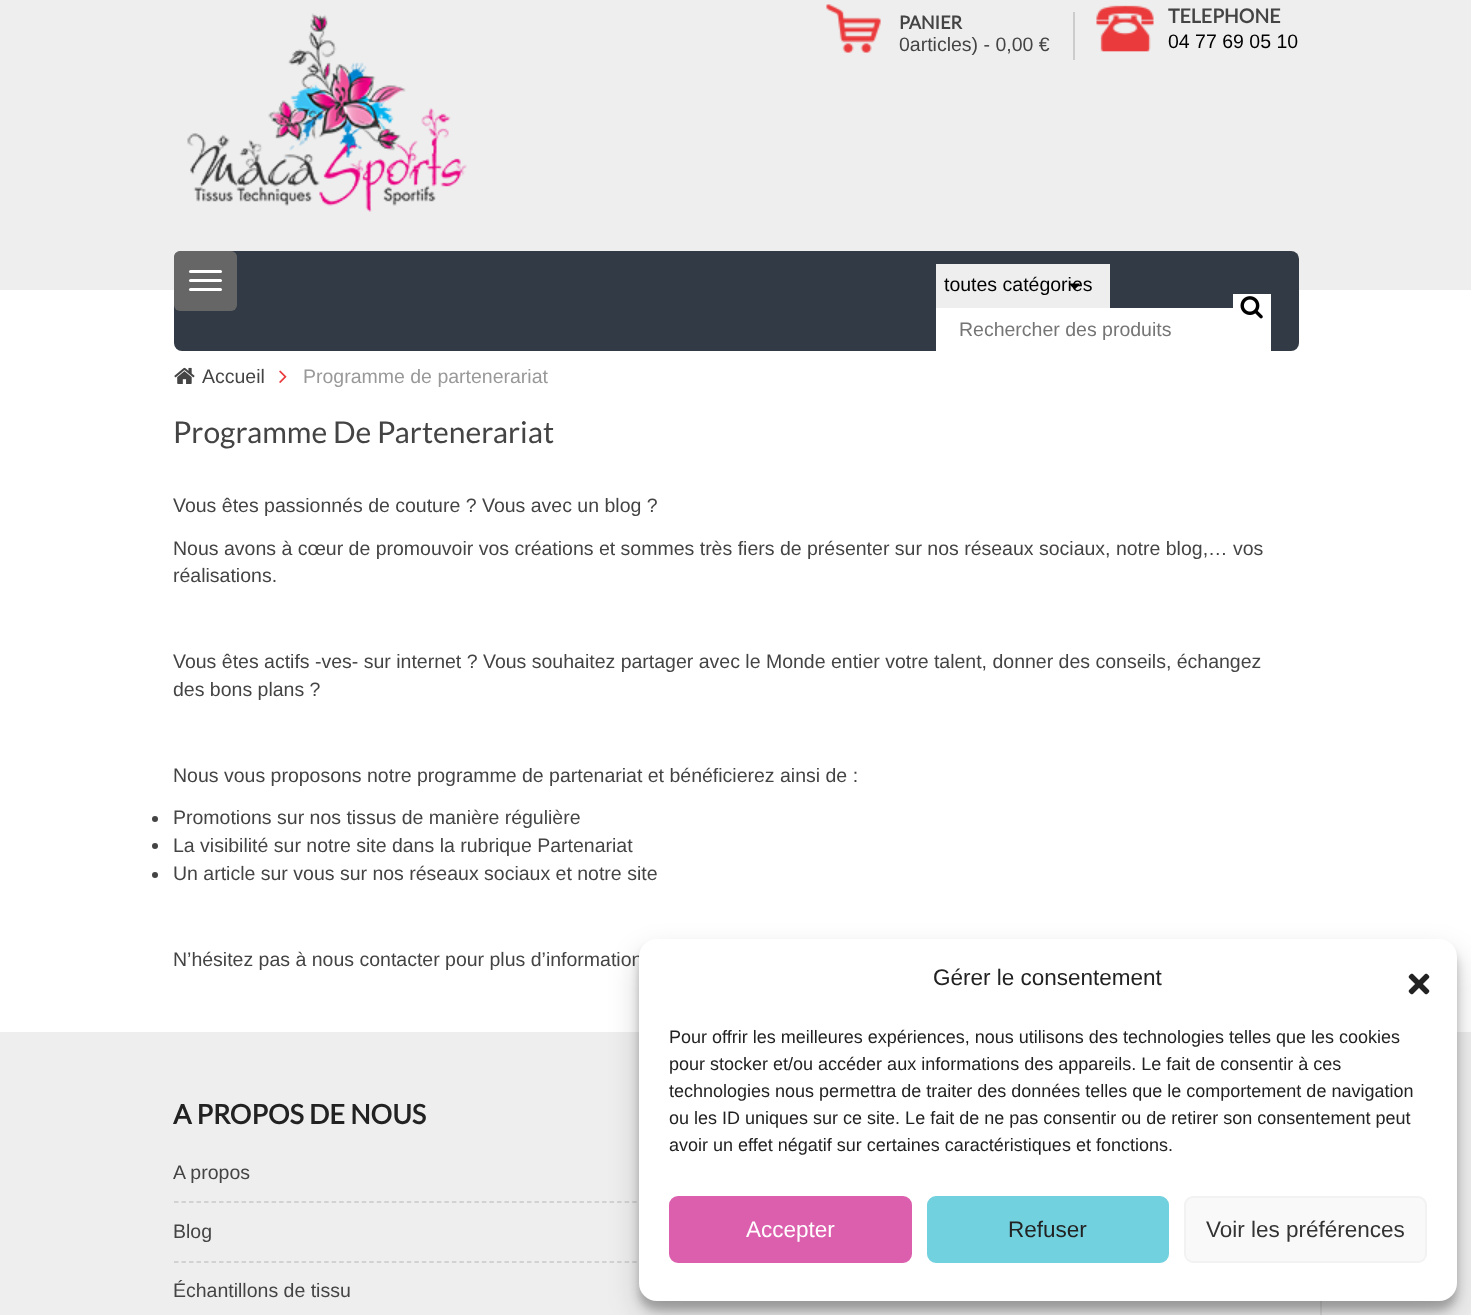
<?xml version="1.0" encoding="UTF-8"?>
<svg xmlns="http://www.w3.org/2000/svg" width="1471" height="1315">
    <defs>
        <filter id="blur1" x="-50%" y="-200%" width="200%" height="500%"><feGaussianBlur stdDeviation="4.5"/></filter>
        <filter id="blur2" x="-50%" y="-200%" width="200%" height="500%"><feGaussianBlur stdDeviation="15"/></filter>
    </defs>
    <rect width="100%" height="100%" fill="#FFFFFF"/>
    <rect x="0" y="0" width="1471" height="290" fill="#EEEEEE"/>
    <image x="187" y="13" width="280" height="199" href="img_01.png"/>
    <image x="826" y="4" width="55" height="49" href="img_02.png"/>
    <rect x="1073" y="12" width="2" height="48" fill="#CCCCCC"/>
    <text x="899" y="29" font-family="Lato" font-size="18" font-weight="700" fill="#444444">PANIER</text>
    <text x="899" y="51" font-family="Liberation Sans" font-size="19.5" fill="#444444">0articles) - 0,00 €</text>
    <image x="1096" y="5" width="58" height="47" href="img_03.png"/>
    <text x="1168" y="23" font-family="Lato" font-size="19.5" font-weight="700" fill="#444444">TELEPHONE</text>
    <text x="1168" y="48" font-family="Liberation Sans" font-size="19.5" fill="#000000">04 77 69 05 10</text>
    <rect x="174" y="251" width="1125" height="100" rx="8" fill="#323A45"/>
    <rect x="174" y="251" width="63" height="60" rx="6" fill="#666666"/>
    <rect x="189" y="270" width="33" height="3" rx="1.5" fill="#FFFFFF"/>
    <rect x="189" y="279" width="33" height="3" rx="1.5" fill="#FFFFFF"/>
    <rect x="189" y="288" width="33" height="3" rx="1.5" fill="#FFFFFF"/>
    <rect x="936" y="264" width="174" height="44" fill="#EEEEEE"/>
    <text x="944" y="291" font-family="Liberation Sans" font-size="19.5" fill="#000000">toutes catégories</text>
    <image x="1070" y="283" width="10" height="6" href="img_04.png"/>
    <rect x="1233" y="294" width="38" height="14" fill="#FFFFFF"/>
    <rect x="936" y="308" width="335" height="43" fill="#FFFFFF"/>
    <image x="1240" y="296" width="23" height="23" href="img_05.png"/>
    <text x="959" y="336" font-family="Liberation Sans" font-size="19.5" fill="#757575">Rechercher des produits</text>
    <image x="174" y="367" width="21" height="17" href="img_06.png"/>
    <text x="202" y="383" font-family="Liberation Sans" font-size="19.5" fill="#444444">Accueil</text>
    <image x="279" y="370" width="8" height="13" href="img_07.png"/>
    <text x="303" y="383" font-family="Liberation Sans" font-size="19.5" fill="#999999">Programme de partenerariat</text>
    <text x="173" y="443" font-family="Lato" font-size="30" fill="#444444">Programme De Partenerariat</text>
    <text x="173" y="512" font-family="Liberation Sans" font-size="19.5" fill="#444444">Vous êtes passionnés de couture ? Vous avec un blog ?</text>
    <text font-family="Liberation Sans" font-size="19.5" fill="#444444">
        <tspan x="173" y="555">Nous avons à cœur de promouvoir vos créations et sommes très fiers de présenter sur nos réseaux sociaux, notre blog,… vos</tspan>
        <tspan x="173" y="582">réalisations.</tspan>
    </text>
    <text font-family="Liberation Sans" font-size="19.5" fill="#444444">
        <tspan x="173" y="668">Vous êtes actifs -ves- sur internet ? Vous souhaitez partager avec le Monde entier votre talent, donner des conseils, échangez</tspan>
        <tspan x="173" y="696">des bons plans ?</tspan>
    </text>
    <text x="173" y="782" font-family="Liberation Sans" font-size="19.5" fill="#444444">Nous vous proposons notre programme de partenariat et bénéficierez ainsi de :</text>
    <circle cx="155" cy="819" r="3" fill="#444444"/>
    <text x="173" y="824" font-family="Liberation Sans" font-size="19.5" fill="#444444">Promotions sur nos tissus de manière régulière</text>
    <circle cx="155" cy="846" r="3" fill="#444444"/>
    <text x="173" y="852" font-family="Liberation Sans" font-size="19.5" fill="#444444">La visibilité sur notre site dans la rubrique Partenariat</text>
    <circle cx="155" cy="875" r="3" fill="#444444"/>
    <text x="173" y="880" font-family="Liberation Sans" font-size="19.5" fill="#444444">Un article sur vous sur nos réseaux sociaux et notre site</text>
    <text x="173" y="966" font-family="Liberation Sans" font-size="19.5" fill="#444444">N’hésitez pas à nous contacter pour plus d’information</text>
    <rect x="0" y="1032" width="1471" height="283" fill="#EEEEEE"/>
    <rect x="1320" y="1301" width="2" height="14" fill="#DDDDDD"/>
    <text x="173" y="1124" font-family="Lato" font-size="27" font-weight="700" fill="#222222">A PROPOS DE NOUS</text>
    <path d="M 174 1202 H 1297.5" fill="none" stroke="#C9C9C9" stroke-width="1.5" stroke-dasharray="4.5 3.01"/>
    <text x="173" y="1179" font-family="Liberation Sans" font-size="19.5" fill="#444444">A propos</text>
    <path d="M 174 1262 H 1297.5" fill="none" stroke="#C9C9C9" stroke-width="1.5" stroke-dasharray="4.5 3.01"/>
    <text x="173" y="1238" font-family="Liberation Sans" font-size="19.5" fill="#444444">Blog</text>
    <text x="173" y="1297" font-family="Liberation Sans" font-size="19.5" fill="#444444">Échantillons de tissu</text>
    <rect x="639" y="948" width="818" height="362" rx="18" fill="#000000" fill-opacity="0.23" filter="url(#blur1)"/>
    <rect x="639" y="954" width="818" height="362" rx="18" fill="#000000" fill-opacity="0.19" filter="url(#blur2)"/>
    <rect x="639" y="939" width="818" height="362" rx="18" fill="#FFFFFF"/>
    <text x="933" y="985" font-family="Liberation Sans" font-size="22.5" fill="#222222">Gérer le consentement</text>
    <image x="1408" y="973" width="22" height="22" href="img_08.png"/>
    <text font-family="Liberation Sans" font-size="18" fill="#222222">
        <tspan x="669" y="1043">Pour offrir les meilleures expériences, nous utilisons des technologies telles que les cookies</tspan>
        <tspan x="669" y="1070">pour stocker et/ou accéder aux informations des appareils. Le fait de consentir à ces</tspan>
        <tspan x="669" y="1097">technologies nous permettra de traiter des données telles que le comportement de navigation</tspan>
        <tspan x="669" y="1124">ou les ID uniques sur ce site. Le fait de ne pas consentir ou de retirer son consentement peut</tspan>
        <tspan x="669" y="1151">avoir un effet négatif sur certaines caractéristiques et fonctions.</tspan>
    </text>
    <rect x="670" y="1197" width="241" height="65" rx="8" fill="#DC5FAE" stroke="#DC5FAE" stroke-width="2"/>
    <text x="746" y="1237" font-family="Liberation Sans" font-size="22.5" fill="#FFFFFF">Accepter</text>
    <rect x="928" y="1197" width="240" height="65" rx="8" fill="#72D1DE" stroke="#72D1DE" stroke-width="2"/>
    <text x="1008" y="1237" font-family="Liberation Sans" font-size="22.5" fill="#222222">Refuser</text>
    <rect x="1185" y="1197" width="241" height="65" rx="8" fill="#F9F9F9" stroke="#F2F2F2" stroke-width="2"/>
    <text x="1206" y="1237" font-family="Liberation Sans" font-size="22.5" fill="#333333">Voir les préférences</text>
</svg>
